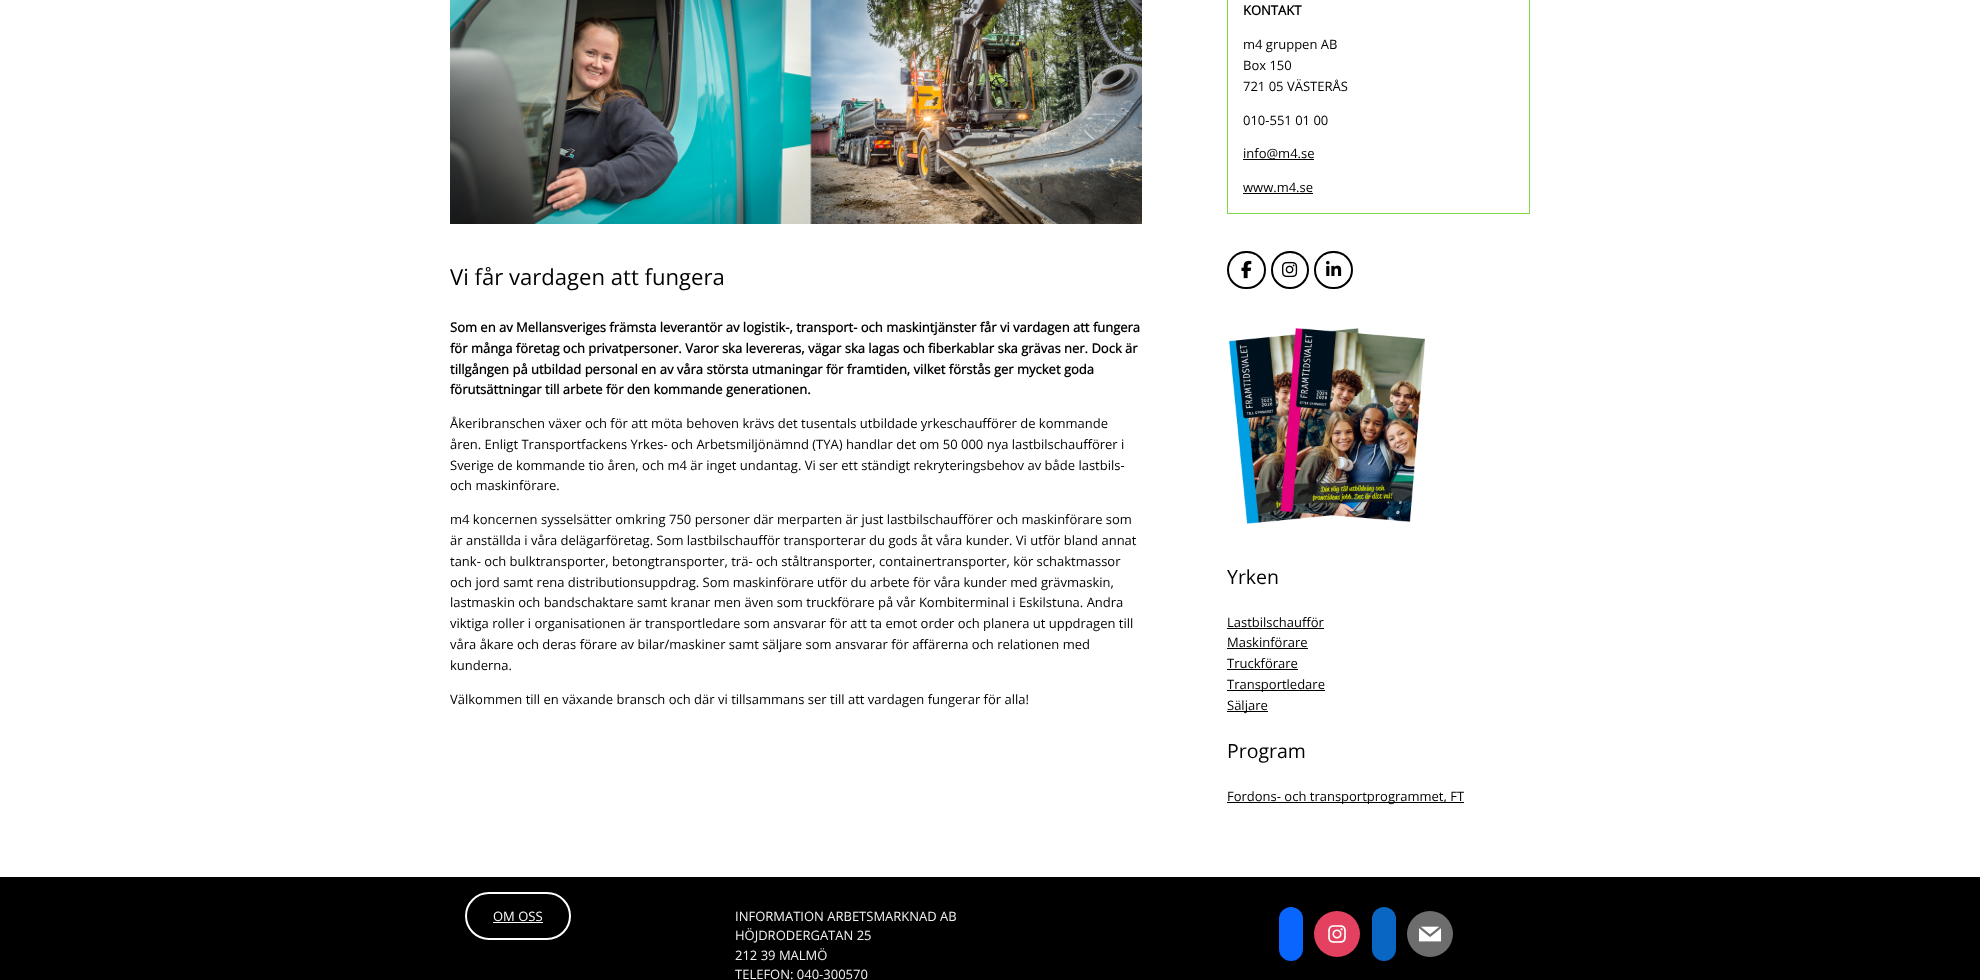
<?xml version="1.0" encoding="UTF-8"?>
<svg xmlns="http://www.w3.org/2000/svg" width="1980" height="980">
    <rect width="100%" height="100%" fill="#000000"/>
    <rect x="0" y="0" width="1980" height="877" fill="#FFFFFF"/>
    <image x="450" y="0" width="692" height="224" href="img_01.png"/>
    <text x="450" y="285" font-family="Open Sans" font-size="22.1" fill="#000000">Vi får vardagen att fungera</text>
    <text font-family="Open Sans" font-size="13" font-weight="700" fill="#000000">
        <tspan x="450" y="332">Som en av Mellansveriges främsta leverantör av logistik-, transport- och maskintjänster får vi vardagen att fungera</tspan>
        <tspan x="450" y="353">för många företag och privatpersoner. Varor ska levereras, vägar ska lagas och fiberkablar ska grävas ner. Dock är</tspan>
        <tspan x="450" y="374">tillgången på utbildad personal en av våra största utmaningar för framtiden, vilket förstås ger mycket goda</tspan>
        <tspan x="450" y="394">förutsättningar till arbete för den kommande generationen.</tspan>
    </text>
    <text font-family="Open Sans" font-size="13" fill="#000000">
        <tspan x="450" y="428">Åkeribranschen växer och för att möta behoven krävs det tusentals utbildade yrkeschaufförer de kommande</tspan>
        <tspan x="450" y="449">åren. Enligt Transportfackens Yrkes- och Arbetsmiljönämnd (TYA) handlar det om 50 000 nya lastbilschaufförer i</tspan>
        <tspan x="450" y="470">Sverige de kommande tio åren, och m4 är inget undantag. Vi ser ett ständigt rekryteringsbehov av både lastbils-</tspan>
        <tspan x="450" y="490">och maskinförare.</tspan>
    </text>
    <text font-family="Open Sans" font-size="13" fill="#000000">
        <tspan x="450" y="524">m4 koncernen sysselsätter omkring 750 personer där merparten är just lastbilschaufförer och maskinförare som</tspan>
        <tspan x="450" y="545">är anställda i våra delägarföretag. Som lastbilschaufför transporterar du gods åt våra kunder. Vi utför bland annat</tspan>
        <tspan x="450" y="566">tank- och bulktransporter, betongtransporter, trä- och ståltransporter, containertransporter, kör schaktmassor</tspan>
        <tspan x="450" y="587">och jord samt rena distributionsuppdrag. Som maskinförare utför du arbete för våra kunder med grävmaskin,</tspan>
        <tspan x="450" y="607">lastmaskin och bandschaktare samt kranar men även som truckförare på vår Kombiterminal i Eskilstuna. Andra</tspan>
        <tspan x="450" y="628">viktiga roller i organisationen är transportledare som ansvarar för att ta emot order och planera ut uppdragen till</tspan>
        <tspan x="450" y="649">våra åkare och deras förare av bilar/maskiner samt säljare som ansvarar för affärerna och relationen med</tspan>
        <tspan x="450" y="670">kunderna.</tspan>
    </text>
    <text x="450" y="704" font-family="Open Sans" font-size="13" fill="#000000">Välkommen till en växande bransch och där vi tillsammans ser till att vardagen fungerar för alla!</text>
    <rect x="1227.5" y="-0.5" width="302" height="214" fill="none" stroke="#81D742"/>
    <text x="1243" y="15" font-family="Open Sans" font-size="13" font-weight="700" fill="#000000">KONTAKT</text>
    <text font-family="Open Sans" font-size="13" fill="#000000">
        <tspan x="1243" y="49">m4 gruppen AB</tspan>
        <tspan x="1243" y="70">Box 150</tspan>
        <tspan x="1243" y="91">721 05 VÄSTERÅS</tspan>
    </text>
    <text x="1243" y="125" font-family="Open Sans" font-size="13" fill="#000000">010-551 01 00</text>
    <rect x="1243" y="159" width="71" height="1" fill="#000000"/>
    <text x="1243" y="158" font-family="Open Sans" font-size="13" fill="#000000">info@m4.se</text>
    <text x="1243" y="192" font-family="Open Sans" font-size="13" fill="#000000">www.m4.se</text>
    <rect x="1243" y="193" width="70" height="1" fill="#000000"/>
    <rect x="1228" y="252" width="37" height="36" rx="18" fill="none" stroke="#000000" stroke-width="2"/>
    <image x="1241" y="260" width="11" height="19" href="img_02.png"/>
    <circle cx="1290" cy="270" r="18" fill="none" stroke="#000000" stroke-width="2"/>
    <image x="1282" y="261" width="16" height="17" href="img_03.png"/>
    <rect x="1315" y="252" width="37" height="36" rx="18" fill="none" stroke="#000000" stroke-width="2"/>
    <image x="1326" y="260" width="16" height="16" href="img_04.png"/>
    <image x="1229" y="328" width="196" height="196" href="img_05.png"/>
    <text x="1227" y="584" font-family="Open Sans" font-size="19.5" fill="#000000">Yrken</text>
    <text x="1227" y="627" font-family="Open Sans" font-size="13" fill="#000000">Lastbilschaufför</text>
    <rect x="1227" y="628" width="97" height="1" fill="#000000"/>
    <text x="1227" y="647" font-family="Open Sans" font-size="13" fill="#000000">Maskinförare</text>
    <rect x="1227" y="648" width="81" height="1" fill="#000000"/>
    <text x="1227" y="668" font-family="Open Sans" font-size="13" fill="#000000">Truckförare</text>
    <rect x="1227" y="669" width="71" height="1" fill="#000000"/>
    <rect x="1227" y="690" width="98" height="1" fill="#000000"/>
    <text x="1227" y="689" font-family="Open Sans" font-size="13" fill="#000000">Transportledare</text>
    <rect x="1227" y="711" width="41" height="1" fill="#000000"/>
    <text x="1227" y="710" font-family="Open Sans" font-size="13" fill="#000000">Säljare</text>
    <text x="1227" y="758" font-family="Open Sans" font-size="19.5" fill="#000000">Program</text>
    <rect x="1227" y="802" width="237" height="1" fill="#000000"/>
    <text x="1227" y="801" font-family="Open Sans" font-size="13" fill="#000000">Fordons- och transportprogrammet, FT</text>
    <rect x="466" y="893" width="104" height="46" rx="23" fill="none" stroke="#FFFFFF" stroke-width="2"/>
    <text x="493" y="921" font-family="Open Sans" font-size="13" fill="#FFFFFF">OM OSS</text>
    <rect x="493" y="922" width="50" height="1" fill="#FFFFFF"/>
    <text font-family="Open Sans" font-size="13" fill="#F2F2F2">
        <tspan x="735" y="921">INFORMATION ARBETSMARKNAD AB</tspan>
        <tspan x="735" y="940">HÖJDRODERGATAN 25</tspan>
        <tspan x="735" y="960">212 39 MALMÖ</tspan>
        <tspan x="735" y="979">TELEFON: 040-300570</tspan>
    </text>
    <rect x="1279" y="907" width="24" height="54" rx="12" fill="#0866FF"/>
    <circle cx="1337" cy="934" r="23" fill="#E4405F"/>
    <image x="1328" y="925" width="18" height="18" href="img_06.png"/>
    <rect x="1372" y="907" width="24" height="54" rx="12" fill="#0966C2"/>
    <circle cx="1430" cy="934" r="23" fill="#6D6D6D"/>
    <image x="1419" y="926" width="23" height="16" href="img_07.png"/>
</svg>
